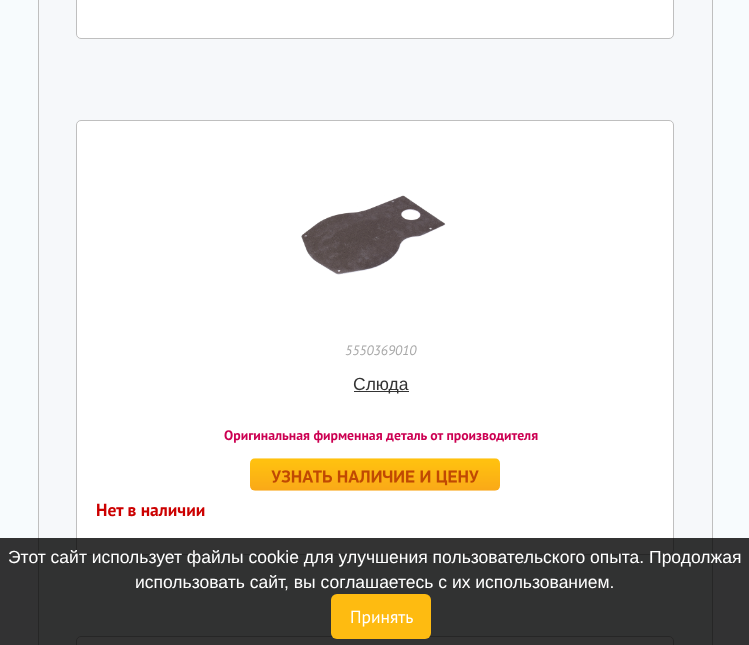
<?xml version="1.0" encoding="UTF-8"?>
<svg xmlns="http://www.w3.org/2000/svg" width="749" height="645">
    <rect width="100%" height="100%" fill="#F7FBFD"/>
    <rect x="38.5" y="-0.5" width="674" height="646" fill="#F6F8FA" stroke="#BFBFBF"/>
    <rect x="76.5" y="-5.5" width="597" height="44" rx="4.5" fill="#FFFFFF" stroke="#BFBFBF"/>
    <rect x="76.5" y="120.5" width="597" height="434" rx="4.5" fill="#FFFFFF" stroke="#BFBFBF"/>
    <image x="301" y="195" width="145" height="80" href="img_01.png"/>
    <text x="345" y="355" font-family="PT Sans" font-size="13.75" font-style="italic" fill="#A8A8A8">5550369010</text>
    <rect x="354" y="391" width="55" height="1" fill="#343434"/>
    <text x="353" y="390" font-family="Liberation Sans" font-size="17.5" fill="#343434">Слюда</text>
    <text x="224" y="440" font-family="PT Sans" font-size="13.75" font-weight="700" fill="#CC0052">Оригинальная фирменная деталь от производителя</text>
    <image x="250" y="458" width="250" height="33" href="img_02.png"/>
    <image x="271" y="470" width="208" height="16" href="img_03.png"/>
    <text x="96" y="516" font-family="PT Sans" font-size="17.5" font-weight="700" fill="#CC0000">Нет в наличии</text>
    <rect x="76.5" y="636.5" width="597" height="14" rx="4.5" fill="#FFFFFF" stroke="#BFBFBF"/>
    <rect x="0" y="538" width="749" height="107" fill="#000000" fill-opacity="0.8"/>
    <text x="8" y="563" font-family="Liberation Sans" font-size="17.5" fill="#FFFFFF">Этот сайт использует файлы cookie для улучшения пользовательского опыта. Продолжая</text>
    <text x="135" y="588" font-family="Liberation Sans" font-size="17.5" fill="#FFFFFF">использовать сайт, вы соглашаетесь с их использованием.</text>
    <rect x="331" y="594" width="100" height="45" rx="6" fill="#FEBB11"/>
    <text x="350" y="623" font-family="PT Sans" font-size="17.5" fill="#FFFFFF">Принять</text>
</svg>
